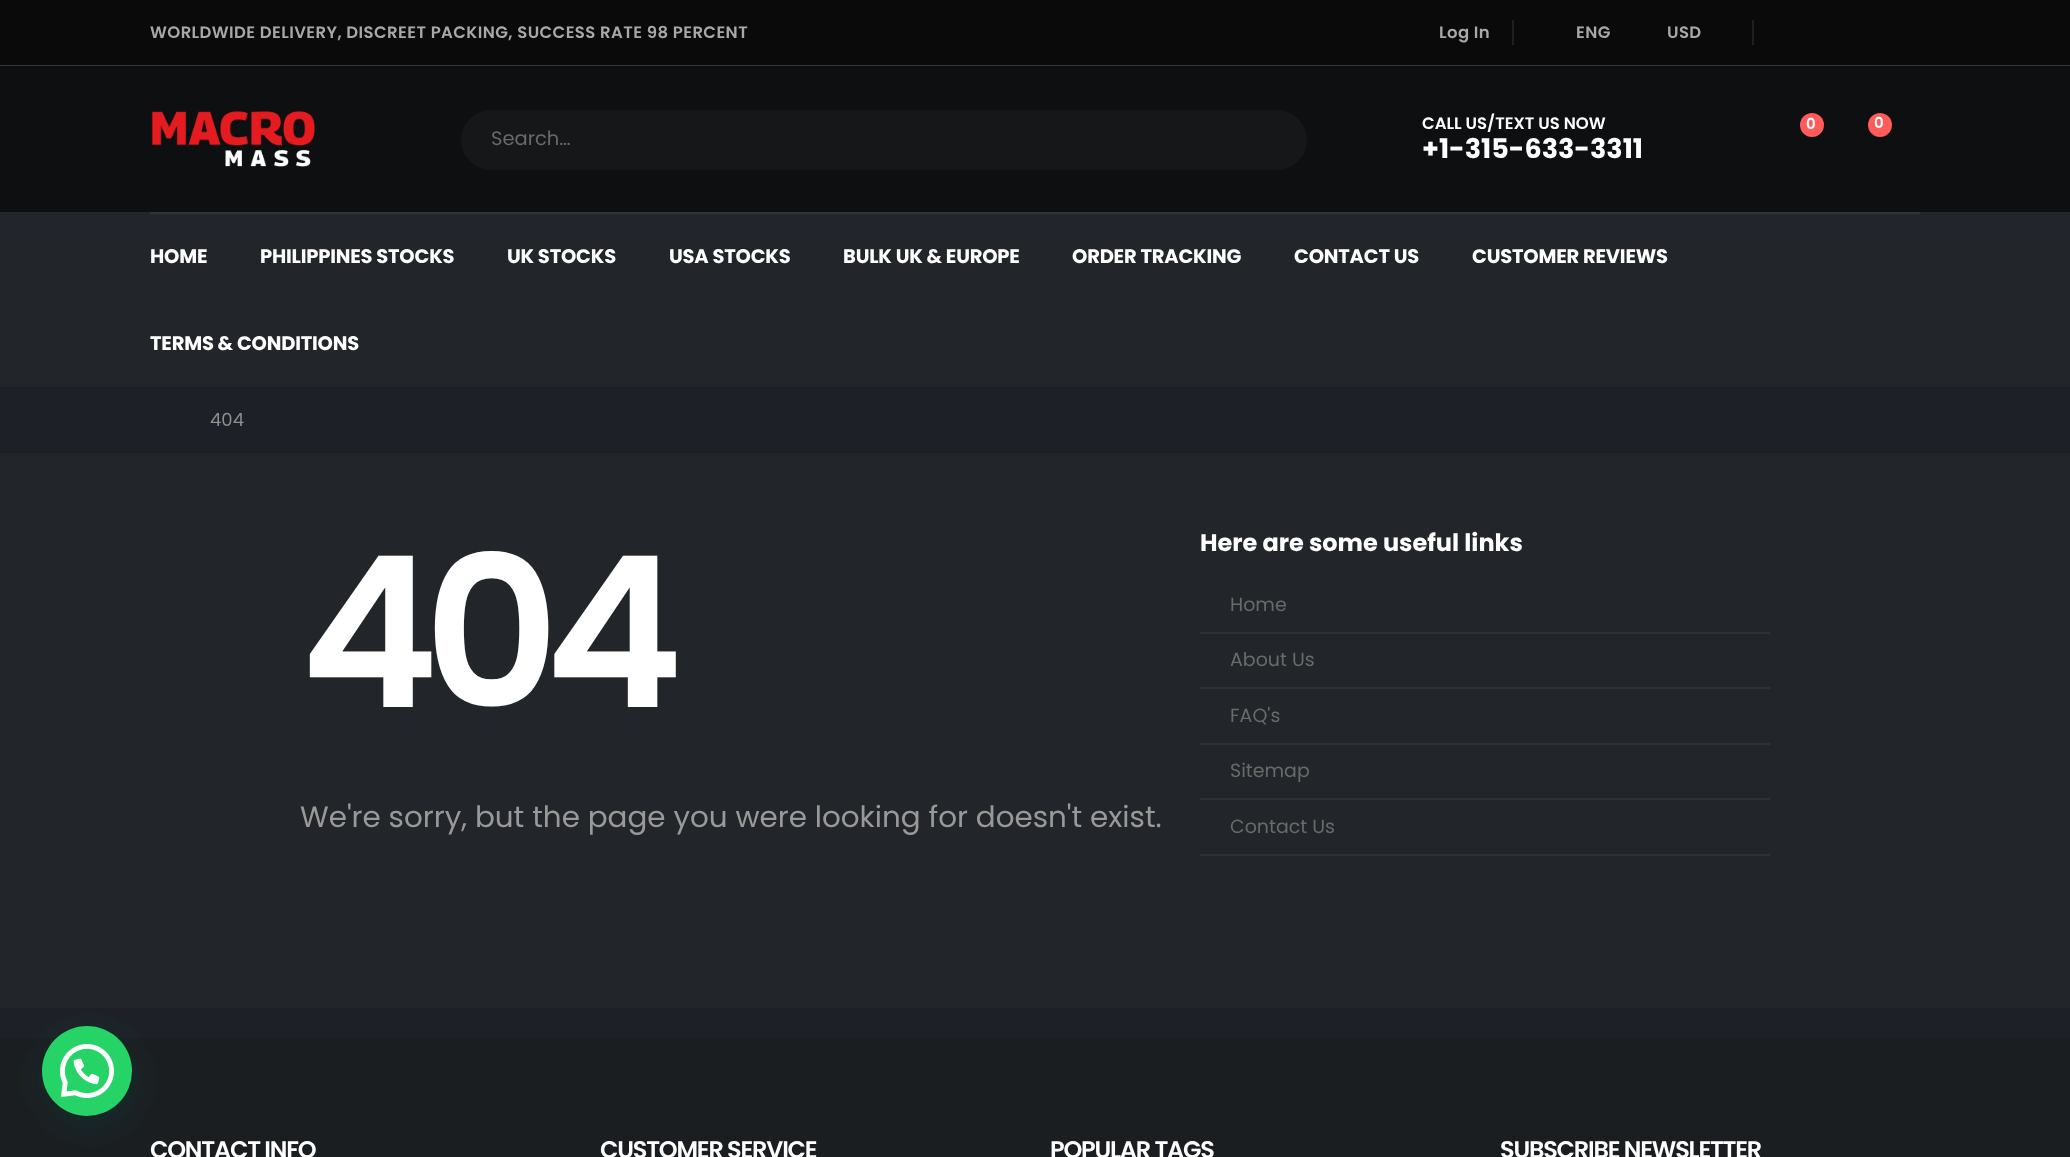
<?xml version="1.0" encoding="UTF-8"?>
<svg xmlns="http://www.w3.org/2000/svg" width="2070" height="1157">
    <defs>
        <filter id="blur1" x="-50%" y="-200%" width="200%" height="500%"><feGaussianBlur stdDeviation="18"/></filter>
    </defs>
    <rect width="100%" height="100%" fill="#1D2127"/>
    <rect x="0" y="453" width="2070" height="555" fill="#222529"/>
    <rect x="0" y="1038" width="2070" height="119" fill="#1B1E21"/>
    <rect x="44" y="1035" width="90" height="90" rx="45" fill="#075E54" fill-opacity="0.24" filter="url(#blur1)"/>
    <circle cx="87" cy="1071" r="45" fill="#25D366"/>
    <image x="60" y="1044" width="54" height="54" href="img_01.png"/>
    <rect x="0" y="0" width="2070" height="65" fill="#0A0A0A"/>
    <rect x="0" y="65" width="2070" height="1" fill="#313438"/>
    <text x="150" y="38" font-family="Poppins" font-size="16.5" font-weight="600" letter-spacing="0.4" fill="#A8A8A8">WORLDWIDE DELIVERY, DISCREET PACKING, SUCCESS RATE 98 PERCENT</text>
    <text x="1439" y="38" font-family="Poppins" font-size="16.5" font-weight="600" letter-spacing="0.4" fill="#A8A8A8">Log In</text>
    <rect x="1512" y="20" width="2" height="25" fill="#202020"/>
    <text x="1576" y="38" font-family="Poppins" font-size="16.5" font-weight="600" letter-spacing="0.4" fill="#A8A8A8">ENG</text>
    <text x="1667" y="38" font-family="Poppins" font-size="16.5" font-weight="600" letter-spacing="0.4" fill="#A8A8A8">USD</text>
    <rect x="1752" y="20" width="2" height="25" fill="#202020"/>
    <rect x="0" y="66" width="2070" height="146" fill="#0E0F11"/>
    <image x="151" y="111" width="164" height="56" href="img_02.png"/>
    <text x="1422" y="129" font-family="Poppins" font-size="16.5" font-weight="600" fill="#FFFFFF">CALL US/TEXT US NOW</text>
    <text x="1422" y="158" font-family="Poppins" font-size="27" font-weight="700" fill="#FFFFFF">+1-315-633-3311</text>
    <circle cx="1812" cy="125" r="12" fill="#FF5B5B"/>
    <text x="1806" y="129" font-family="Poppins" font-size="15" font-weight="600" fill="#FFFFFF">0</text>
    <circle cx="1880" cy="125" r="12" fill="#FF5B5B"/>
    <text x="1874" y="128" font-family="Poppins" font-size="15" font-weight="600" fill="#FFFFFF">0</text>
    <rect x="461" y="110" width="846" height="60" rx="30" fill="#151719"/>
    <text x="491" y="145" font-family="Poppins" font-size="19.5" fill="#696A6A">Search…</text>
    <rect x="0" y="212" width="2070" height="175" fill="#222529"/>
    <rect x="150" y="212" width="1770" height="2" fill="#313438"/>
    <text x="150" y="263" font-family="Poppins" font-size="19.5" font-weight="700" letter-spacing="-0.2" fill="#FFFFFF">HOME</text>
    <text x="260" y="263" font-family="Poppins" font-size="19.5" font-weight="700" letter-spacing="-0.2" fill="#FFFFFF">PHILIPPINES STOCKS</text>
    <text x="507" y="263" font-family="Poppins" font-size="19.5" font-weight="700" letter-spacing="-0.2" fill="#FFFFFF">UK STOCKS</text>
    <text x="669" y="263" font-family="Poppins" font-size="19.5" font-weight="700" letter-spacing="-0.2" fill="#FFFFFF">USA STOCKS</text>
    <text x="843" y="263" font-family="Poppins" font-size="19.5" font-weight="700" letter-spacing="-0.2" fill="#FFFFFF">BULK UK &amp; EUROPE</text>
    <text x="1072" y="263" font-family="Poppins" font-size="19.5" font-weight="700" letter-spacing="-0.2" fill="#FFFFFF">ORDER TRACKING</text>
    <text x="1294" y="263" font-family="Poppins" font-size="19.5" font-weight="700" letter-spacing="-0.2" fill="#FFFFFF">CONTACT US</text>
    <text x="1472" y="263" font-family="Poppins" font-size="19.5" font-weight="700" letter-spacing="-0.2" fill="#FFFFFF">CUSTOMER REVIEWS</text>
    <text x="150" y="350" font-family="Poppins" font-size="19.5" font-weight="700" letter-spacing="-0.2" fill="#FFFFFF">TERMS &amp; CONDITIONS</text>
    <text x="210" y="426" font-family="Poppins" font-size="18" fill="#8E8E8E">404</text>
    <text x="300" y="707" font-family="Poppins" font-size="210" font-weight="600" letter-spacing="-15" fill="#FFFFFF">404</text>
    <text x="300" y="827" font-family="Poppins" font-size="29.4" fill="#999999">We're sorry, but the page you were looking for doesn't exist.</text>
    <text x="1200" y="551" font-family="Poppins" font-size="24" font-weight="700" fill="#FFFFFF">Here are some useful links</text>
    <rect x="1200" y="632" width="570" height="2" fill="#2E3237"/>
    <text x="1230" y="611" font-family="Poppins" font-size="19" fill="#696A6A">Home</text>
    <rect x="1200" y="687" width="570" height="2" fill="#2E3237"/>
    <text x="1230" y="666" font-family="Poppins" font-size="19" fill="#696A6A">About Us</text>
    <rect x="1200" y="743" width="570" height="2" fill="#2E3237"/>
    <text x="1230" y="722" font-family="Poppins" font-size="19" fill="#696A6A">FAQ's</text>
    <rect x="1200" y="798" width="570" height="2" fill="#2E3237"/>
    <text x="1230" y="777" font-family="Poppins" font-size="19" fill="#696A6A">Sitemap</text>
    <rect x="1200" y="854" width="570" height="2" fill="#2E3237"/>
    <text x="1230" y="833" font-family="Poppins" font-size="19" fill="#696A6A">Contact Us</text>
    <text x="150" y="1158" font-family="Poppins" font-size="24" font-weight="600" letter-spacing="-1.2" fill="#FFFFFF">CONTACT INFO</text>
    <text x="600" y="1158" font-family="Poppins" font-size="24" font-weight="600" letter-spacing="-1.2" fill="#FFFFFF">CUSTOMER SERVICE</text>
    <text x="1050" y="1158" font-family="Poppins" font-size="24" font-weight="600" letter-spacing="-1.2" fill="#FFFFFF">POPULAR TAGS</text>
    <text x="1500" y="1158" font-family="Poppins" font-size="24" font-weight="600" letter-spacing="-1.2" fill="#FFFFFF">SUBSCRIBE NEWSLETTER</text>
</svg>
